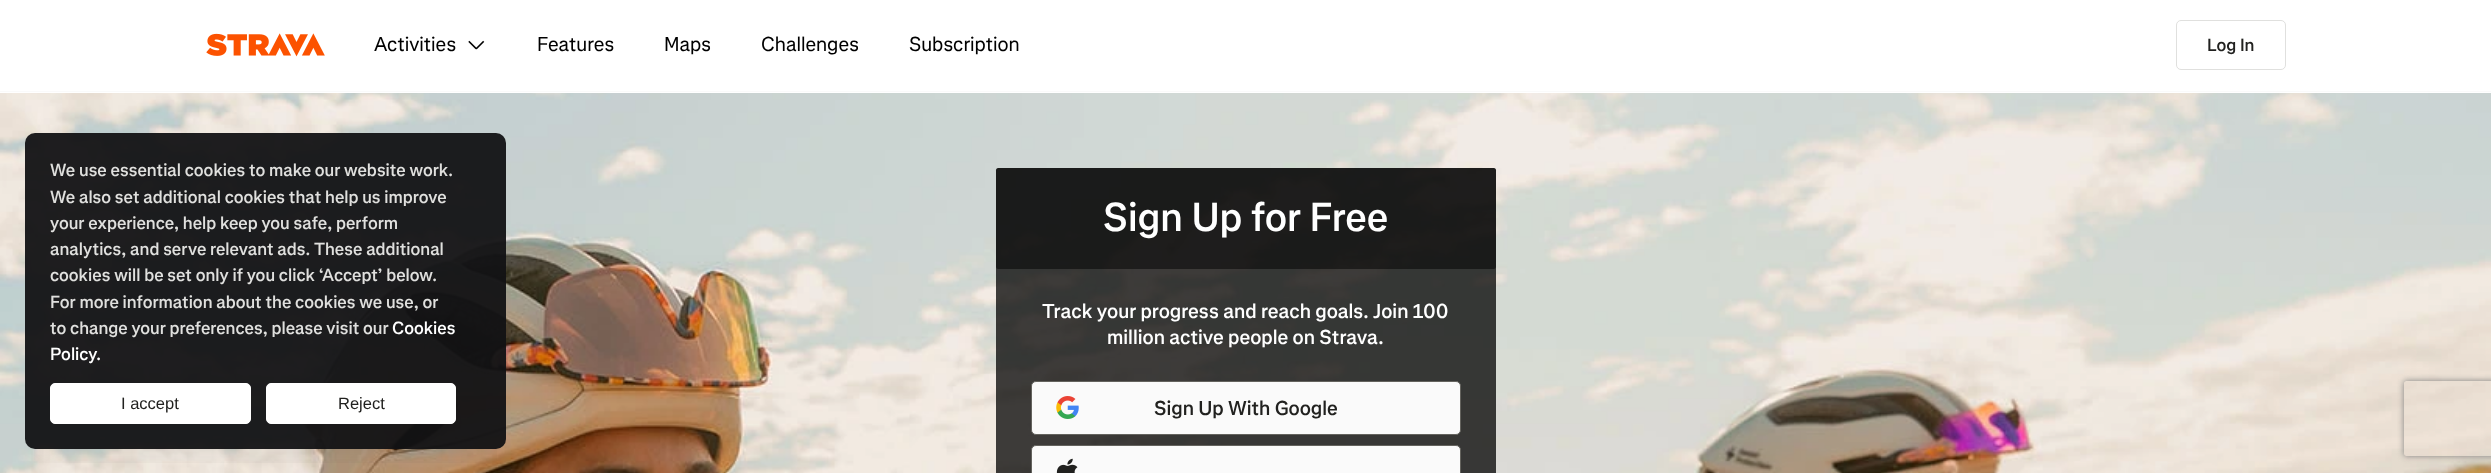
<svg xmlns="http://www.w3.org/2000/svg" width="2491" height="473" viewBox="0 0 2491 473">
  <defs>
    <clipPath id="clip1"><rect x="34" y="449" width="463" height="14"/></clipPath>
    <clipPath id="clip2"><path d="M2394 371H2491V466H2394ZM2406.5 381H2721.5C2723 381 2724 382 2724 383.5V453.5C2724 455 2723 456 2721.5 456H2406.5C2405 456 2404 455 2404 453.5V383.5C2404 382 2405 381 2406.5 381Z" clip-rule="evenodd"/></clipPath>
  </defs>
  <rect width="100%" height="100%" fill="rgb(255,255,255)"/>
  <image x="0" y="93" width="2491" height="380" href="pic3.png"/>
  <g clip-path="url(#clip1)">
    <rect x="40" y="163" width="451" height="286" fill="rgba(18,18,20,0.12)" filter="blur(15px)"/>
  </g>
  <rect x="25" y="133" width="481" height="316" rx="10" fill="rgba(18,18,20,0.95)"/>
  <g font-family="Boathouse" font-size="17.5" font-weight="500" fill="rgb(224,224,222)">
    <text>
      <tspan x="50" y="176">We use essential cookies to make our website work.</tspan>
      <tspan x="50" y="203">We also set additional cookies that help us improve</tspan>
      <tspan x="50" y="229">your experience, help keep you safe, perform</tspan>
      <tspan x="50" y="255">analytics, and serve relevant ads. These additional</tspan>
      <tspan x="50" y="281">cookies will be set only if you click ‘Accept’ below.</tspan>
      <tspan x="50" y="308">For more information about the cookies we use, or</tspan>
      <tspan x="50" y="334">to change your preferences, please visit our</tspan>
    </text>
  </g>
  <g font-family="Boathouse" font-size="17.5" font-weight="500" fill="rgb(255,255,255)">
    <text x="392" y="334">Cookies</text>
    <text x="50" y="360">Policy.</text>
  </g>
  <rect x="50.5" y="383.5" width="200" height="40" rx="4.5" fill="rgb(255,255,255)" stroke="rgb(255,255,255)"/>
  <text x="121" y="409" font-family="Liberation Sans" font-size="16.5" fill="rgb(33,33,31)">I accept</text>
  <rect x="266.5" y="383.5" width="189" height="40" rx="4.5" fill="rgb(255,255,255)" stroke="rgb(255,255,255)"/>
  <text x="338" y="409" font-family="Liberation Sans" font-size="16.5" fill="rgb(33,33,31)">Reject</text>
  <rect x="0" y="91" width="2491" height="1" fill="rgb(250,250,250)"/>
  <image x="206" y="33" width="119" height="24" href="pic1.png"/>
  <text x="374" y="51" font-family="Boathouse" font-size="20" fill="rgb(0,0,0)">Activities</text>
  <image x="468" y="40" width="17" height="10" href="pic2.png"/>
  <g font-family="Boathouse" font-size="20" fill="rgb(0,0,0)">
    <text x="537" y="51">Features</text>
    <text x="664" y="51">Maps</text>
    <text x="761" y="51">Challenges</text>
    <text x="909" y="51">Subscription</text>
  </g>
  <rect x="2176.5" y="20.5" width="109" height="49" rx="4.5" fill="none" stroke="rgb(224,224,222)"/>
  <text x="2207" y="51" font-family="Boathouse" font-size="17.5" font-weight="500" fill="rgb(33,33,31)">Log In</text>
  <rect x="996" y="168" width="500" height="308" rx="2.5" fill="rgba(0,0,0,0.75)"/>
  <rect x="996" y="168" width="500" height="101" rx="2.5" fill="rgba(0,0,0,0.5)"/>
  <text x="1103" y="231" font-family="Boathouse" font-size="40" font-weight="500" fill="rgb(255,255,255)">Sign Up for Free</text>
  <g font-family="Boathouse" font-size="20" font-weight="500" fill="rgb(255,255,255)">
    <text x="1042" y="318">Track your progress and reach goals. Join 100</text>
    <text x="1107" y="344">million active people on Strava.</text>
  </g>
  <rect x="1031.5" y="381.5" width="429" height="53" rx="4.5" fill="rgb(250,250,250)" stroke="rgb(100,99,94)"/>
  <image x="1056" y="396" width="23" height="23" href="pic4.png"/>
  <text x="1154" y="415" font-family="Boathouse" font-size="20" font-weight="500" fill="rgb(33,33,31)">Sign Up With Google</text>
  <rect x="1031.5" y="445.5" width="429" height="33" rx="4.5" fill="rgb(250,250,250)" stroke="rgb(100,99,94)"/>
  <image x="1056" y="458" width="22" height="15" href="pic5.png"/>
  <g clip-path="url(#clip2)">
    <rect x="2404" y="381" width="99" height="75" rx="2.5" fill="rgb(128,128,128)" filter="blur(3px)"/>
  </g>
</svg>
